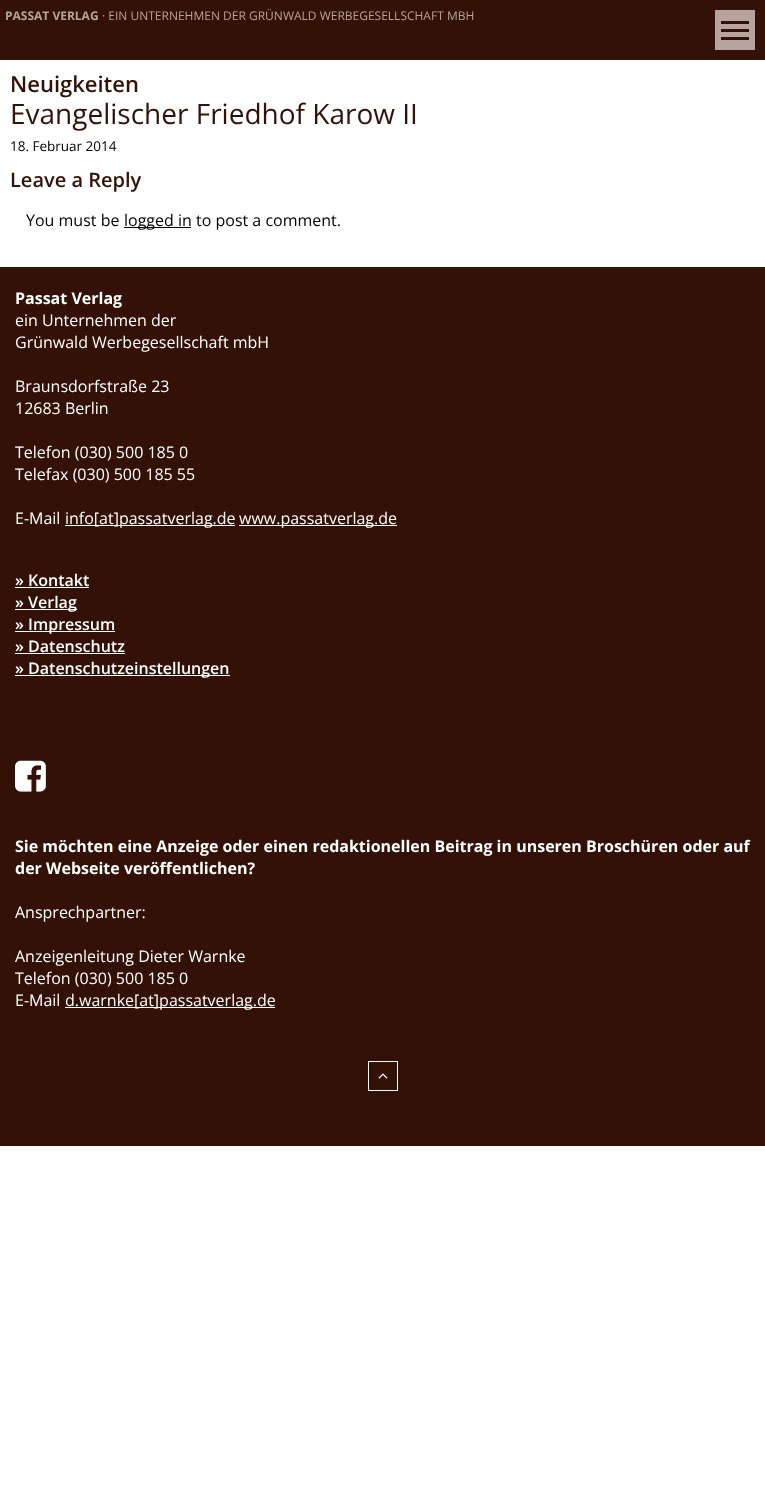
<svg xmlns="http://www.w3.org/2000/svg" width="765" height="1489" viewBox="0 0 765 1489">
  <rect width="100%" height="100%" fill="rgb(255,255,255)"/>
  <rect x="0" y="0" width="765" height="60" fill="rgb(52,17,6)"/>
  <text x="5" y="20" font-family="Open Sans" font-size="12" font-weight="bold" fill="rgb(182,163,157)">PASSAT VERLAG</text>
  <text x="102" y="20" font-family="Open Sans" font-size="12" fill="rgb(182,163,157)">· EIN UNTERNEHMEN DER GRÜNWALD WERBEGESELLSCHAFT MBH</text>
  <rect x="715" y="10" width="40" height="40" fill="rgb(182,163,157)"/>
  <rect x="721" y="21" width="28" height="3" fill="rgb(52,17,6)"/>
  <rect x="721" y="29" width="28" height="3" fill="rgb(52,17,6)"/>
  <rect x="721" y="37" width="28" height="3" fill="rgb(52,17,6)"/>
  <text x="10" y="92" font-family="Open Sans" font-size="22" font-weight="600" fill="rgb(52,17,6)">Neuigkeiten</text>
  <text x="10" y="124" font-family="Open Sans" font-size="28" fill="rgb(52,17,6)">Evangelischer Friedhof Karow II</text>
  <text x="10" y="151" font-family="Open Sans" font-size="13.5" fill="rgb(0,0,0)">18. Februar 2014</text>
  <text x="10" y="187" font-family="Open Sans" font-size="20" font-weight="600" fill="rgb(52,17,6)">Leave a Reply</text>
  <text x="26" y="226" font-family="Open Sans" font-size="16" fill="rgb(0,0,0)">You must be</text>
  <rect x="124" y="227" width="67" height="1" fill="rgb(0,0,0)"/>
  <text x="124" y="226" font-family="Open Sans" font-size="16" fill="rgb(0,0,0)">logged in to post a comment.</text>
  <rect x="0" y="267" width="765" height="879" fill="rgb(52,17,6)"/>
  <text x="15" y="304" font-family="Open Sans" font-size="16" font-weight="bold" fill="rgb(255,255,255)">Passat Verlag</text>
  <g font-family="Open Sans" font-size="16" fill="rgb(255,255,255)">
    <text>
      <tspan x="15" y="326">ein Unternehmen der</tspan>
      <tspan x="15" y="348">Grünwald Werbegesellschaft mbH</tspan>
    </text>
    <text>
      <tspan x="15" y="392">Braunsdorfstraße 23</tspan>
      <tspan x="15" y="414">12683 Berlin</tspan>
    </text>
    <text>
      <tspan x="15" y="458">Telefon (030) 500 185 0</tspan>
      <tspan x="15" y="480">Telefax (030) 500 185 55</tspan>
    </text>
    <text x="15" y="524">E-Mail</text>
  </g>
  <rect x="65" y="525" width="170" height="1" fill="rgb(255,255,255)"/>
  <text x="65" y="524" font-family="Open Sans" font-size="16" fill="rgb(255,255,255)">info[at]passatverlag.de</text>
  <rect x="239" y="525" width="158" height="1" fill="rgb(255,255,255)"/>
  <text x="239" y="524" font-family="Open Sans" font-size="16" fill="rgb(255,255,255)">www.passatverlag.de</text>
  <text x="15" y="586" font-family="Open Sans" font-size="16" font-weight="600" fill="rgb(255,255,255)">» Kontakt</text>
  <rect x="15" y="587" width="74" height="1" fill="rgb(255,255,255)"/>
  <rect x="15" y="609" width="62" height="1" fill="rgb(255,255,255)"/>
  <text x="15" y="608" font-family="Open Sans" font-size="16" font-weight="600" fill="rgb(255,255,255)">» Verlag</text>
  <rect x="15" y="631" width="100" height="1" fill="rgb(255,255,255)"/>
  <g font-family="Open Sans" font-size="16" font-weight="600" fill="rgb(255,255,255)">
    <text>
      <tspan x="15" y="630">» Impressum</tspan>
      <tspan x="15" y="652">» Datenschutz</tspan>
    </text>
  </g>
  <rect x="15" y="653" width="110" height="1" fill="rgb(255,255,255)"/>
  <rect x="15" y="675" width="215" height="1" fill="rgb(255,255,255)"/>
  <text x="15" y="674" font-family="Open Sans" font-size="16" font-weight="600" fill="rgb(255,255,255)">» Datenschutzeinstellungen</text>
  <image x="15" y="760" width="31" height="32" href="pic1.png"/>
  <g font-family="Open Sans" font-size="16" font-weight="bold" fill="rgb(255,255,255)">
    <text>
      <tspan x="15" y="852">Sie möchten eine Anzeige oder einen redaktionellen Beitrag in unseren Broschüren oder auf</tspan>
      <tspan x="15" y="874">der Webseite veröffentlichen?</tspan>
    </text>
  </g>
  <g font-family="Open Sans" font-size="16" fill="rgb(255,255,255)">
    <text x="15" y="918">Ansprechpartner:</text>
    <text>
      <tspan x="15" y="962">Anzeigenleitung Dieter Warnke</tspan>
      <tspan x="15" y="984">Telefon (030) 500 185 0</tspan>
      <tspan x="15" y="1006">E-Mail</tspan>
    </text>
  </g>
  <rect x="65" y="1007" width="210" height="1" fill="rgb(255,255,255)"/>
  <text x="65" y="1006" font-family="Open Sans" font-size="16" fill="rgb(255,255,255)">d.warnke[at]passatverlag.de</text>
  <rect x="368.5" y="1061.5" width="29" height="29" fill="none" stroke="rgb(255,255,255)"/>
  <image x="378" y="1073" width="10" height="6" href="pic2.png"/>
</svg>
